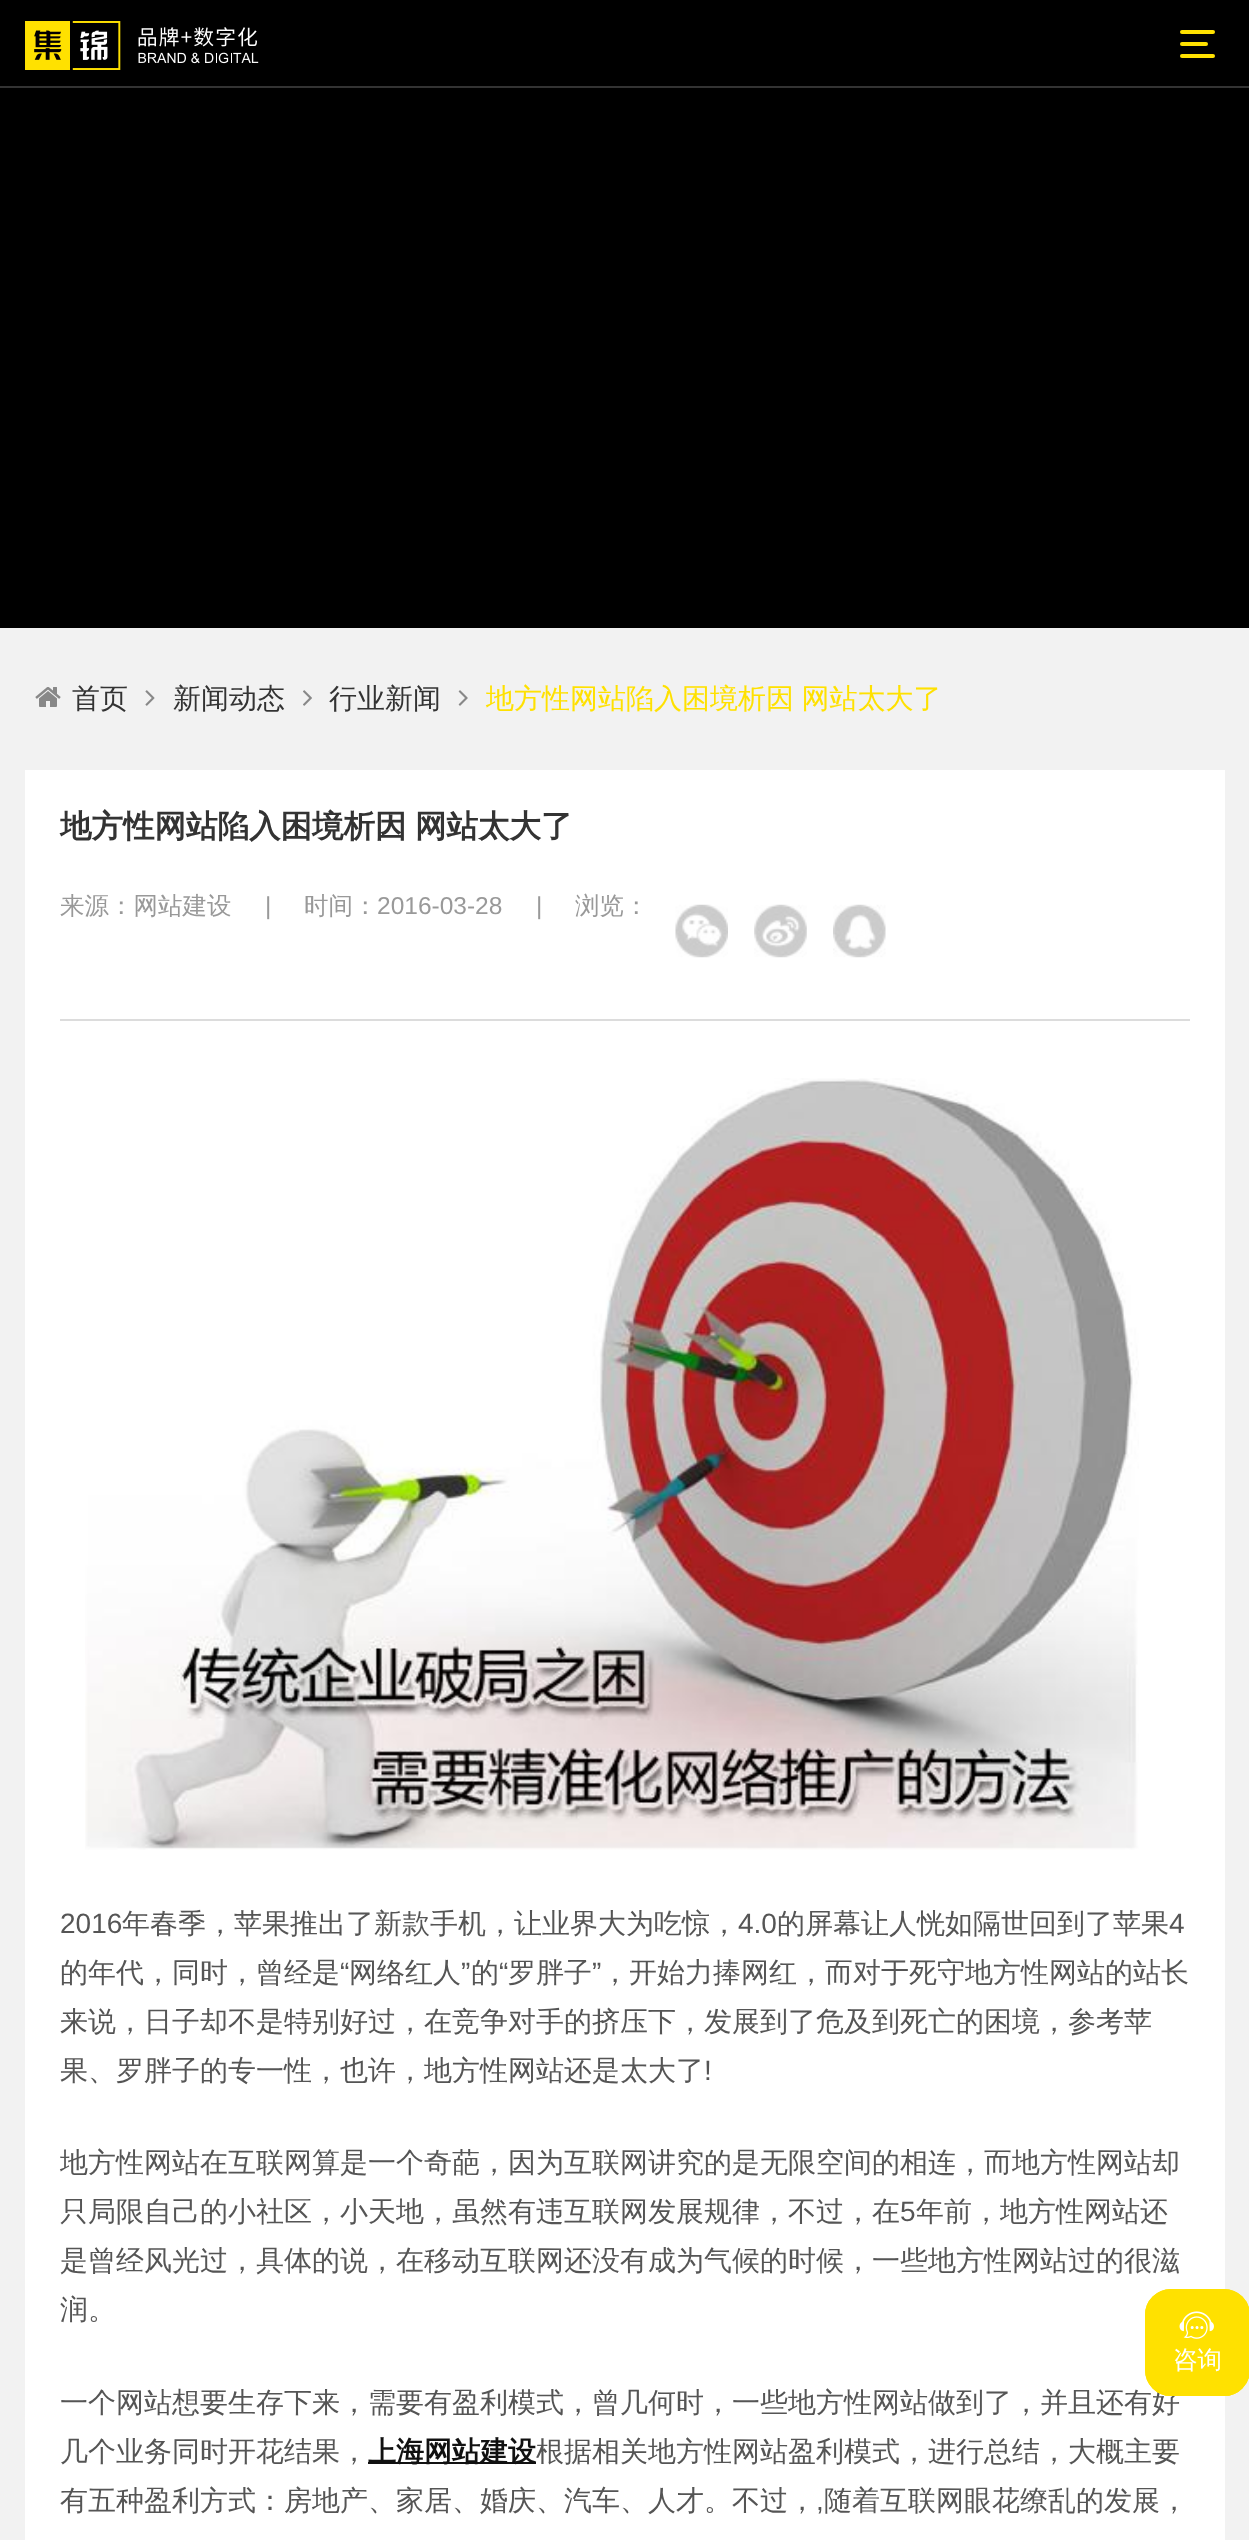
<svg xmlns="http://www.w3.org/2000/svg" width="1249" height="2540" viewBox="0 0 1249 2540">
  <rect width="100%" height="100%" fill="rgb(0,0,0)"/>
  <rect x="0" y="86" width="1249" height="2" fill="rgb(51,51,51)"/>
  <image x="25" y="21" width="234" height="49" href="pic1.png"/>
  <rect x="1180" y="30" width="35" height="4" rx="2" fill="rgb(255,225,0)"/>
  <rect x="1180" y="42" width="28" height="4" rx="2" fill="rgb(255,225,0)"/>
  <rect x="1180" y="54" width="35" height="4" rx="2" fill="rgb(255,225,0)"/>
  <rect x="0" y="628" width="1249" height="1912" fill="rgb(242,242,242)"/>
  <image x="35" y="687" width="26" height="20" href="pic2.png"/>
  <text x="72" y="708" font-family="WenQuanYi Zen Hei" font-size="28" font-weight="500" fill="rgb(51,51,51)">首页</text>
  <image x="145" y="690" width="10" height="16" href="pic3.png"/>
  <text x="173" y="708" font-family="WenQuanYi Zen Hei" font-size="28" font-weight="500" fill="rgb(51,51,51)">新闻动态</text>
  <image x="303" y="690" width="9" height="16" href="pic4.png"/>
  <text x="329" y="708" font-family="WenQuanYi Zen Hei" font-size="28" font-weight="500" fill="rgb(51,51,51)">行业新闻</text>
  <image x="458" y="690" width="10" height="16" href="pic5.png"/>
  <text x="486" y="708" word-spacing="-1" font-family="WenQuanYi Zen Hei" font-size="28" font-weight="500" fill="rgb(255,225,0)">地方性网站陷入困境析因 网站太大了</text>
  <rect x="25" y="770" width="1200" height="1770" fill="rgb(255,255,255)"/>
  <rect x="60" y="1019" width="1130" height="2" fill="rgb(220,220,220)"/>
  <text x="60" y="837" word-spacing="-1" font-family="WenQuanYi Zen Hei" font-size="31.5" font-weight="bold" fill="rgb(51,51,51)">地方性网站陷入困境析因 网站太大了</text>
  <text x="60" y="914" font-family="WenQuanYi Zen Hei" font-size="24.5" font-weight="500" fill="rgb(153,153,153)">来源：网站建设</text>
  <text x="265" y="914" font-family="Liberation Sans" font-size="24.5" fill="rgb(153,153,153)">|</text>
  <text x="304" y="914" font-family="WenQuanYi Zen Hei" font-size="24.5" font-weight="500" fill="rgb(153,153,153)">时间：</text>
  <g font-family="Liberation Sans" font-size="24.5" fill="rgb(153,153,153)">
    <text x="377" y="914">2016-03-28</text>
    <text x="536" y="914">|</text>
  </g>
  <text x="575" y="914" font-family="WenQuanYi Zen Hei" font-size="24.5" font-weight="500" fill="rgb(153,153,153)">浏览：</text>
  <image x="675" y="904" width="53" height="54" href="pic6.png"/>
  <image x="754" y="904" width="53" height="54" href="pic7.png"/>
  <image x="833" y="904" width="53" height="54" href="pic8.png"/>
  <image x="85" y="1078" width="1054" height="772" href="pic9.png"/>
  <text x="60" y="1933" font-family="Liberation Sans" font-size="28" fill="rgb(85,85,85)">2016</text>
  <text x="122" y="1933" font-family="WenQuanYi Zen Hei" font-size="28" font-weight="500" fill="rgb(85,85,85)">年春季，苹果推出了新款手机，让业界大为吃惊，</text>
  <text x="738" y="1933" font-family="Liberation Sans" font-size="28" fill="rgb(85,85,85)">4.0</text>
  <text x="777" y="1933" font-family="WenQuanYi Zen Hei" font-size="28" font-weight="500" fill="rgb(85,85,85)">的屏幕让人恍如隔世回到了苹果</text>
  <text x="1169" y="1933" font-family="Liberation Sans" font-size="28" fill="rgb(85,85,85)">4</text>
  <text x="60" y="1982" font-family="WenQuanYi Zen Hei" font-size="28" font-weight="500" fill="rgb(85,85,85)">的年代，同时，曾经是</text>
  <text x="340" y="1982" font-family="Liberation Sans" font-size="28" fill="rgb(85,85,85)">“</text>
  <text x="349" y="1982" font-family="WenQuanYi Zen Hei" font-size="28" font-weight="500" fill="rgb(85,85,85)">网络红人</text>
  <text x="461" y="1982" font-family="Liberation Sans" font-size="28" fill="rgb(85,85,85)">”</text>
  <text x="471" y="1982" font-family="WenQuanYi Zen Hei" font-size="28" font-weight="500" fill="rgb(85,85,85)">的</text>
  <text x="499" y="1982" font-family="Liberation Sans" font-size="28" fill="rgb(85,85,85)">“</text>
  <text x="508" y="1982" font-family="WenQuanYi Zen Hei" font-size="28" font-weight="500" fill="rgb(85,85,85)">罗胖子</text>
  <text x="592" y="1982" font-family="Liberation Sans" font-size="28" fill="rgb(85,85,85)">”</text>
  <g font-family="WenQuanYi Zen Hei" font-size="28" font-weight="500" fill="rgb(85,85,85)">
    <text x="601" y="1982">，开始力捧网红，而对于死守地方性网站的站长</text>
    <text>
      <tspan x="60" y="2031">来说，日子却不是特别好过，在竞争对手的挤压下，发展到了危及到死亡的困境，参考苹</tspan>
      <tspan x="60" y="2080">果、罗胖子的专一性，也许，地方性网站还是太大了</tspan>
    </text>
  </g>
  <text x="704" y="2080" font-family="Liberation Sans" font-size="28" fill="rgb(85,85,85)">!</text>
  <g font-family="WenQuanYi Zen Hei" font-size="28" font-weight="500" fill="rgb(85,85,85)">
    <text>
      <tspan x="60" y="2172">地方性网站在互联网算是一个奇葩，因为互联网讲究的是无限空间的相连，而地方性网站却</tspan>
      <tspan x="60" y="2221">只局限自己的小社区，小天地，虽然有违互联网发展规律，不过，在</tspan>
    </text>
  </g>
  <text x="900" y="2221" font-family="Liberation Sans" font-size="28" fill="rgb(85,85,85)">5</text>
  <g font-family="WenQuanYi Zen Hei" font-size="28" font-weight="500" fill="rgb(85,85,85)">
    <text x="916" y="2221">年前，地方性网站还</text>
    <text>
      <tspan x="60" y="2270">是曾经风光过，具体的说，在移动互联网还没有成为气候的时候，一些地方性网站过的很滋</tspan>
      <tspan x="60" y="2319">润。</tspan>
    </text>
    <text>
      <tspan x="60" y="2412">一个网站想要生存下来，需要有盈利模式，曾几何时，一些地方性网站做到了，并且还有好</tspan>
      <tspan x="60" y="2461">几个业务同时开花结果，</tspan>
    </text>
  </g>
  <rect x="368" y="2462" width="168" height="2" fill="rgb(17,17,17)"/>
  <text x="368" y="2461" font-family="WenQuanYi Zen Hei" font-size="28" font-weight="bold" fill="rgb(17,17,17)">上海网站建设</text>
  <g font-family="WenQuanYi Zen Hei" font-size="28" font-weight="500" fill="rgb(85,85,85)">
    <text x="536" y="2461">根据相关地方性网站盈利模式，进行总结，大概主要</text>
    <text x="60" y="2510">有五种盈利方式：房地产、家居、婚庆、汽车、人才。不过，</text>
  </g>
  <text x="816" y="2510" font-family="Liberation Sans" font-size="28" fill="rgb(85,85,85)">,</text>
  <text x="824" y="2510" font-family="WenQuanYi Zen Hei" font-size="28" font-weight="500" fill="rgb(85,85,85)">随着互联网眼花缭乱的发展，</text>
  <rect x="1146" y="2290" width="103" height="105" rx="25" fill="none" stroke="rgb(255,225,0)" stroke-width="2"/>
  <rect x="1146" y="2290" width="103" height="105" rx="25" fill="rgb(255,225,0)" stroke="rgb(255,225,0)" stroke-width="2"/>
  <image x="1179" y="2311" width="35" height="28" href="pic10.png"/>
  <text x="1173" y="2368" font-family="WenQuanYi Zen Hei" font-size="24.5" font-weight="500" fill="rgb(255,255,255)">咨询</text>
</svg>
